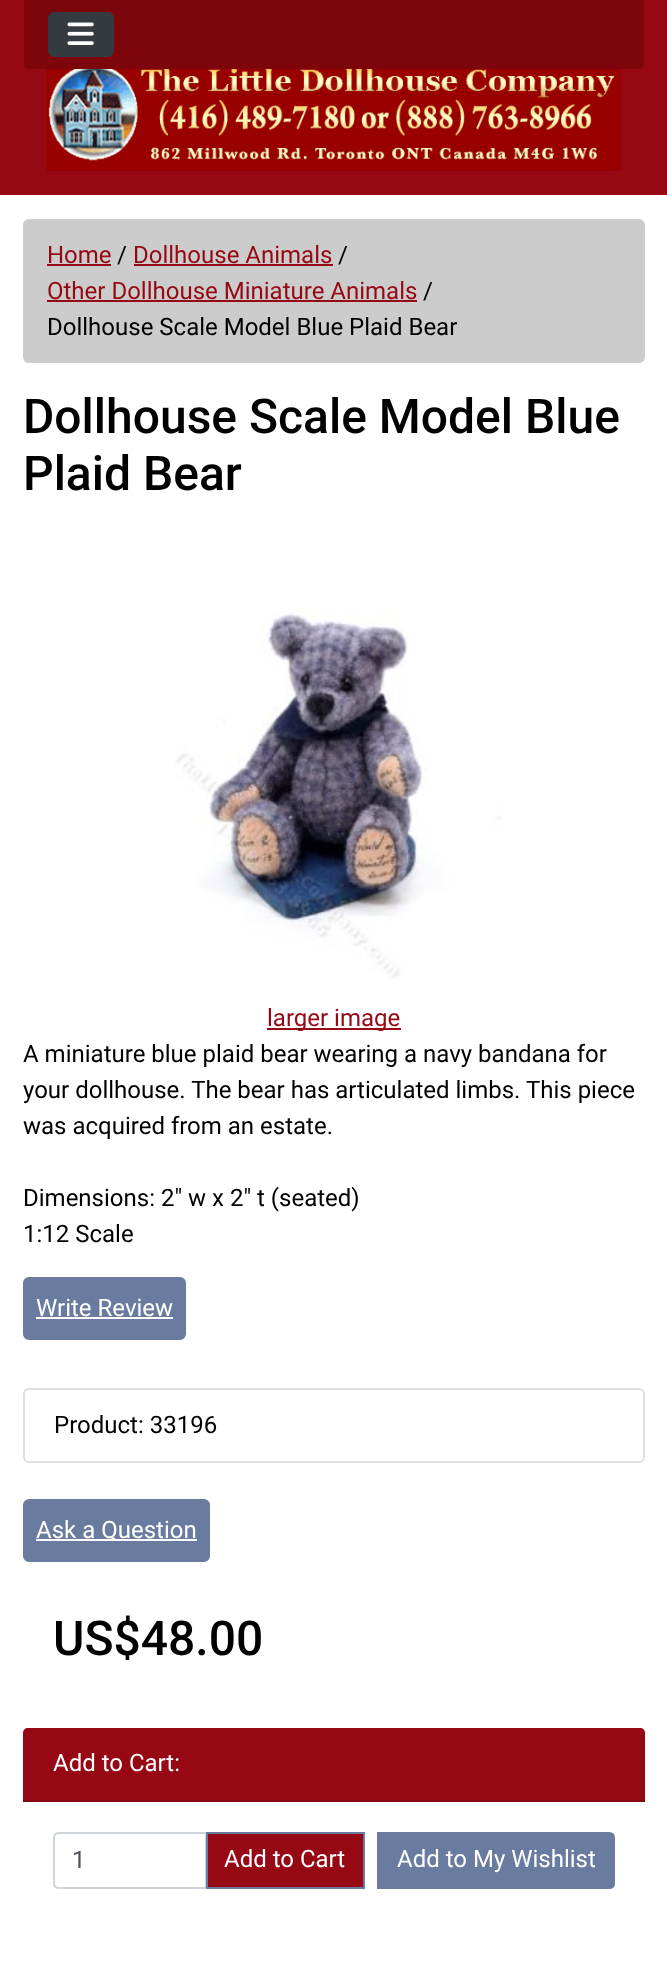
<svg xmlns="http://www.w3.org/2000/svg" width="667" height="1975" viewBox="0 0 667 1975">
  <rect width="100%" height="100%" fill="rgb(255,255,255)"/>
  <rect x="0" y="0" width="667" height="195" fill="rgb(149,8,20)"/>
  <path d="M24 0H644V63C644 66.5 641.5 69 638 69H30C26.5 69 24 66.5 24 63Z" fill="rgb(124,6,11)"/>
  <rect x="49" y="13" width="64" height="43" rx="5" fill="rgb(52,58,64)" stroke="rgb(52,58,64)" stroke-width="2"/>
  <image x="67" y="22" width="27" height="23" href="pic1.png"/>
  <image x="46" y="69" width="575" height="102" href="pic2.png"/>
  <rect x="23" y="219" width="622" height="144" rx="6" fill="rgb(204,204,204)"/>
  <text x="47" y="263" font-family="Roboto" font-size="24" fill="rgb(149,8,20)">Home</text>
  <rect x="47" y="264" width="64" height="2" fill="rgb(149,8,20)"/>
  <text x="117" y="263" font-family="Roboto" font-size="24" fill="rgb(0,0,0)">/</text>
  <text x="133" y="263" font-family="Roboto" font-size="24" fill="rgb(149,8,20)">Dollhouse Animals</text>
  <rect x="134" y="264" width="199" height="2" fill="rgb(149,8,20)"/>
  <text x="338" y="263" font-family="Roboto" font-size="24" fill="rgb(0,0,0)">/</text>
  <text x="47" y="299" font-family="Roboto" font-size="24" fill="rgb(149,8,20)">Other Dollhouse Miniature Animals</text>
  <rect x="47" y="300" width="370" height="2" fill="rgb(149,8,20)"/>
  <g font-family="Roboto" font-size="24" fill="rgb(0,0,0)">
    <text x="423" y="299">/</text>
    <text x="47" y="335">Dollhouse Scale Model Blue Plaid Bear</text>
  </g>
  <g font-family="Roboto" font-size="48" font-weight="500" fill="rgb(0,0,0)">
    <text>
      <tspan x="23" y="433">Dollhouse Scale Model Blue</tspan>
      <tspan x="23" y="490">Plaid Bear</tspan>
    </text>
  </g>
  <image x="175" y="611" width="328" height="368" href="pic3.png"/>
  <rect x="267" y="1028" width="134" height="2" fill="rgb(149,8,20)"/>
  <text x="267" y="1026" font-family="Roboto" font-size="24" fill="rgb(149,8,20)">larger image</text>
  <g font-family="Roboto" font-size="24" fill="rgb(0,0,0)">
    <text>
      <tspan x="23" y="1062">A miniature blue plaid bear wearing a navy bandana for</tspan>
      <tspan x="23" y="1098">your dollhouse. The bear has articulated limbs. This piece</tspan>
      <tspan x="23" y="1134">was acquired from an estate.</tspan>
    </text>
    <text>
      <tspan x="23" y="1206">Dimensions: 2" w x 2" t (seated)</tspan>
      <tspan x="23" y="1242">1:12 Scale</tspan>
    </text>
  </g>
  <rect x="24" y="1278" width="161" height="61" rx="5" fill="rgb(105,123,158)" stroke="rgb(105,123,158)" stroke-width="2"/>
  <text x="36" y="1316" font-family="Roboto" font-size="24" fill="rgb(255,255,255)">Write Review</text>
  <rect x="36" y="1317" width="137" height="2" fill="rgb(255,255,255)"/>
  <rect x="24" y="1389" width="620" height="73" rx="5" fill="none" stroke="rgb(223,223,223)" stroke-width="2"/>
  <text x="54" y="1433" font-family="Roboto" font-size="24" fill="rgb(0,0,0)">Product: 33196</text>
  <rect x="24" y="1500" width="185" height="61" rx="5" fill="rgb(105,123,158)" stroke="rgb(105,123,158)" stroke-width="2"/>
  <rect x="36" y="1539" width="161" height="2" fill="rgb(255,255,255)"/>
  <text x="36" y="1538" font-family="Roboto" font-size="24" fill="rgb(255,255,255)">Ask a Question</text>
  <text x="53" y="1655" font-family="Roboto" font-size="48" font-weight="500" fill="rgb(0,0,0)">US$48.00</text>
  <path d="M28 1728H640C643 1728 645 1730 645 1733V1802H23V1733C23 1730 25 1728 28 1728Z" fill="rgb(149,8,20)"/>
  <rect x="23" y="1800" width="622" height="2" fill="rgb(130,7,18)"/>
  <text x="53" y="1771" font-family="Roboto" font-size="24" fill="rgb(255,255,255)">Add to Cart:</text>
  <path d="M59 1833H206V1888H59C56 1888 54 1886 54 1883V1838C54 1835 56 1833 59 1833Z" fill="none" stroke="rgb(206,212,218)" stroke-width="2"/>
  <text x="72" y="1868" font-family="Roboto" font-size="24" fill="rgb(73,80,87)">1</text>
  <rect x="207" y="1833" width="157" height="55" fill="rgb(149,8,20)" stroke="rgb(105,123,158)" stroke-width="2"/>
  <text x="224" y="1867" font-family="Roboto" font-size="24" fill="rgb(255,255,255)">Add to Cart</text>
  <path d="M378 1833H609C612 1833 614 1835 614 1838V1883C614 1886 612 1888 609 1888H378Z" fill="rgb(105,123,158)" stroke="rgb(105,123,158)" stroke-width="2"/>
  <text x="397" y="1867" font-family="Roboto" font-size="24" fill="rgb(255,255,255)">Add to My Wishlist</text>
</svg>
